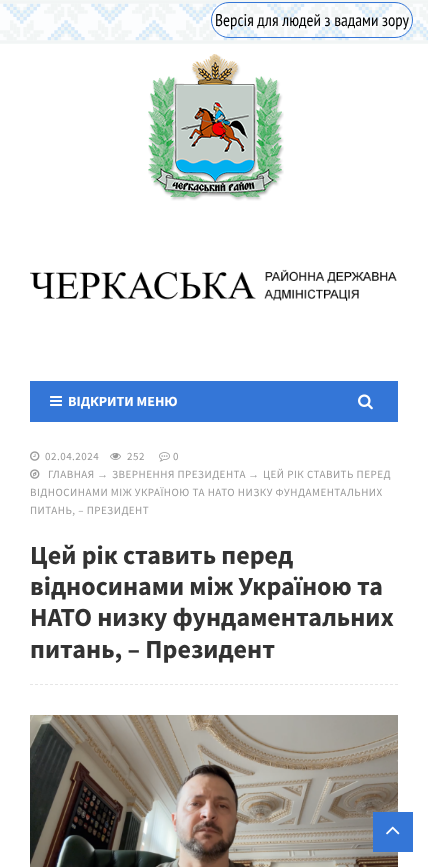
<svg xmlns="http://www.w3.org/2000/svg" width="428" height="867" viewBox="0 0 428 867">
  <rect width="100%" height="100%" fill="rgb(252,253,254)"/>
  <image x="0" y="0" width="428" height="44" href="pic1.png"/>
  <rect x="211.5" y="2.5" width="201" height="35" rx="17.5" fill="none" stroke="rgb(52,118,215)"/>
  <text x="215" y="26" font-family="PT Sans Narrow" font-size="17" fill="rgb(0,0,0)">Версія для людей з вадами зору</text>
  <rect x="0" y="44" width="428" height="823" fill="rgb(255,255,255)"/>
  <image x="148" y="54" width="136" height="147" href="pic2.png"/>
  <image x="30" y="269" width="367" height="32" href="pic3.png"/>
  <rect x="30" y="381" width="368" height="41" fill="rgb(52,118,215)"/>
  <image x="50" y="396" width="12" height="10" href="pic4.png"/>
  <text x="68" y="406" font-family="Source Sans Pro" font-size="14" font-weight="bold" fill="rgb(255,255,255)">ВІДКРИТИ МЕНЮ</text>
  <image x="358" y="394" width="15" height="16" href="pic5.png"/>
  <image x="30" y="451" width="10" height="10" href="pic6.png"/>
  <text x="45" y="460" font-family="Source Sans Pro" font-size="11" letter-spacing="0.5" fill="rgb(153,153,153)">02.04.2024</text>
  <image x="110" y="453" width="11" height="7" href="pic7.png"/>
  <text x="127" y="460" font-family="Source Sans Pro" font-size="11" letter-spacing="0.5" fill="rgb(153,153,153)">252</text>
  <image x="159" y="452" width="11" height="10" href="pic8.png"/>
  <text x="173" y="460" font-family="Source Sans Pro" font-size="11" letter-spacing="0.5" fill="rgb(153,153,153)">0</text>
  <image x="30" y="469" width="10" height="10" href="pic9.png"/>
  <text x="48" y="478" font-family="Source Sans Pro" font-size="11" letter-spacing="0.5" fill="rgb(153,153,153)">ГЛАВНАЯ</text>
  <text x="97" y="478" font-family="Liberation Sans" font-size="11" letter-spacing="0.5" fill="rgb(153,153,153)">→</text>
  <text x="112" y="478" font-family="Source Sans Pro" font-size="11" letter-spacing="0.5" fill="rgb(153,153,153)">ЗВЕРНЕННЯ ПРЕЗИДЕНТА</text>
  <text x="248" y="478" font-family="Liberation Sans" font-size="11" letter-spacing="0.5" fill="rgb(153,153,153)">→</text>
  <g font-family="Source Sans Pro" font-size="11" letter-spacing="0.5" fill="rgb(153,153,153)">
    <text x="263" y="478">ЦЕЙ РІК СТАВИТЬ ПЕРЕД</text>
    <text>
      <tspan x="30" y="496">ВІДНОСИНАМИ МІЖ УКРАЇНОЮ ТА НАТО НИЗКУ ФУНДАМЕНТАЛЬНИХ</tspan>
      <tspan x="30" y="514">ПИТАНЬ, – ПРЕЗИДЕНТ</tspan>
    </text>
  </g>
  <g font-family="Source Sans Pro" font-size="26" font-weight="bold" fill="rgb(51,51,51)">
    <text>
      <tspan x="30" y="564">Цей рік ставить перед</tspan>
      <tspan x="30" y="595">відносинами між Україною та</tspan>
      <tspan x="30" y="626">НАТО низку фундаментальних</tspan>
      <tspan x="30" y="658">питань, – Президент</tspan>
    </text>
  </g>
  <path d="M30 684.5H398" fill="none" stroke="rgb(230,230,230)" stroke-dasharray="3 2"/>
  <image x="30" y="715" width="368" height="152" href="pic10.png"/>
  <rect x="373" y="812" width="40" height="40" fill="rgb(52,118,215)"/>
  <image x="386" y="826" width="14" height="9" href="pic11.png"/>
</svg>
